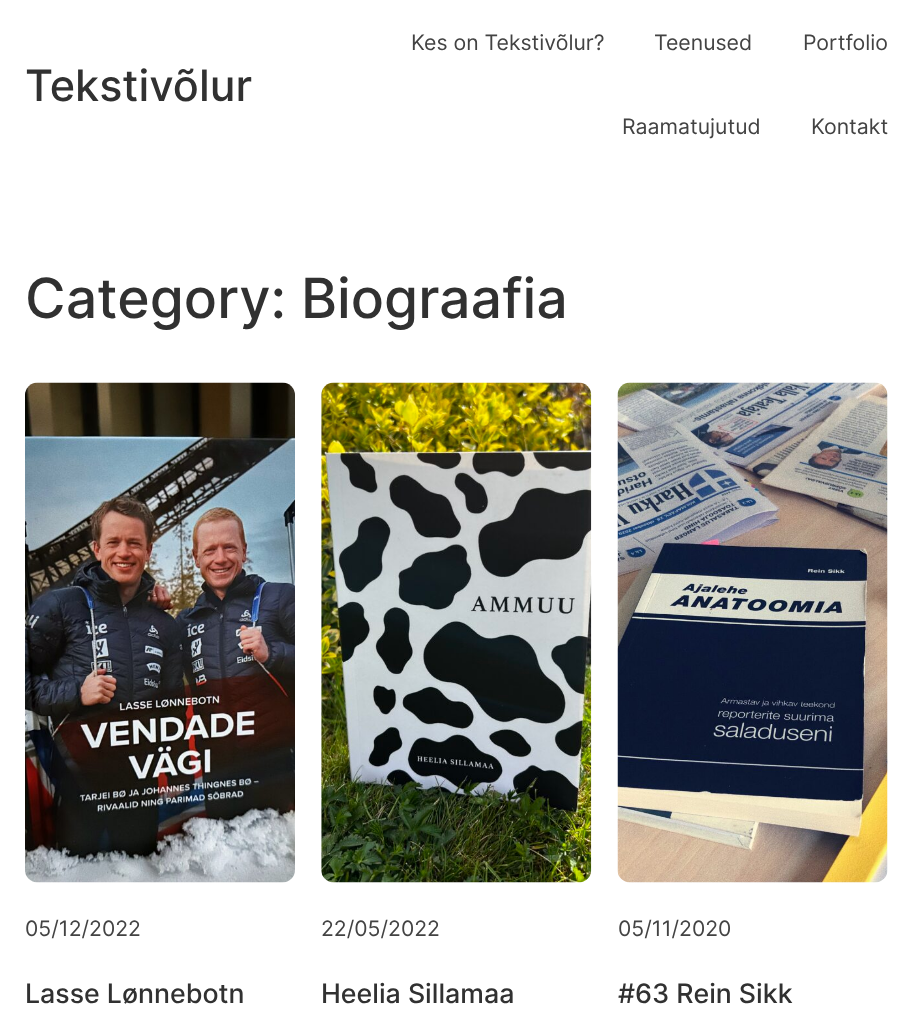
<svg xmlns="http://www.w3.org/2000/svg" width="912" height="1021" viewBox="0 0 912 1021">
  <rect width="100%" height="100%" fill="rgb(255,255,255)"/>
  <text x="25" y="101" font-family="Inter" font-size="43.25" font-weight="500" fill="rgb(49,49,49)">Tekstivõlur</text>
  <g font-family="Inter" font-size="21.25" fill="rgb(67,67,67)">
    <text x="411" y="50">Kes on Tekstivõlur?</text>
    <text x="654" y="50">Teenused</text>
    <text x="803" y="50">Portfolio</text>
    <text x="622" y="134">Raamatujutud</text>
    <text x="811" y="134">Kontakt</text>
  </g>
  <text x="25" y="318" font-family="Inter" font-size="55.25" font-weight="500" fill="rgb(49,49,49)">Category: Biograafia</text>
  <image x="25" y="382" width="270" height="501" href="pic1.png"/>
  <text x="25" y="936" font-family="Inter" font-size="21.25" fill="rgb(67,67,67)">05/12/2022</text>
  <text x="25" y="1003" font-family="Inter" font-size="26.75" font-weight="500" fill="rgb(49,49,49)">Lasse Lønnebotn</text>
  <image x="321" y="382" width="271" height="501" href="pic2.png"/>
  <text x="321" y="936" font-family="Inter" font-size="21.25" fill="rgb(67,67,67)">22/05/2022</text>
  <text x="321" y="1003" font-family="Inter" font-size="26.75" font-weight="500" fill="rgb(49,49,49)">Heelia Sillamaa</text>
  <image x="617" y="382" width="271" height="501" href="pic3.png"/>
  <text x="618" y="936" font-family="Inter" font-size="21.25" fill="rgb(67,67,67)">05/11/2020</text>
  <text x="618" y="1003" font-family="Inter" font-size="26.75" font-weight="500" fill="rgb(49,49,49)">#63 Rein Sikk</text>
</svg>
